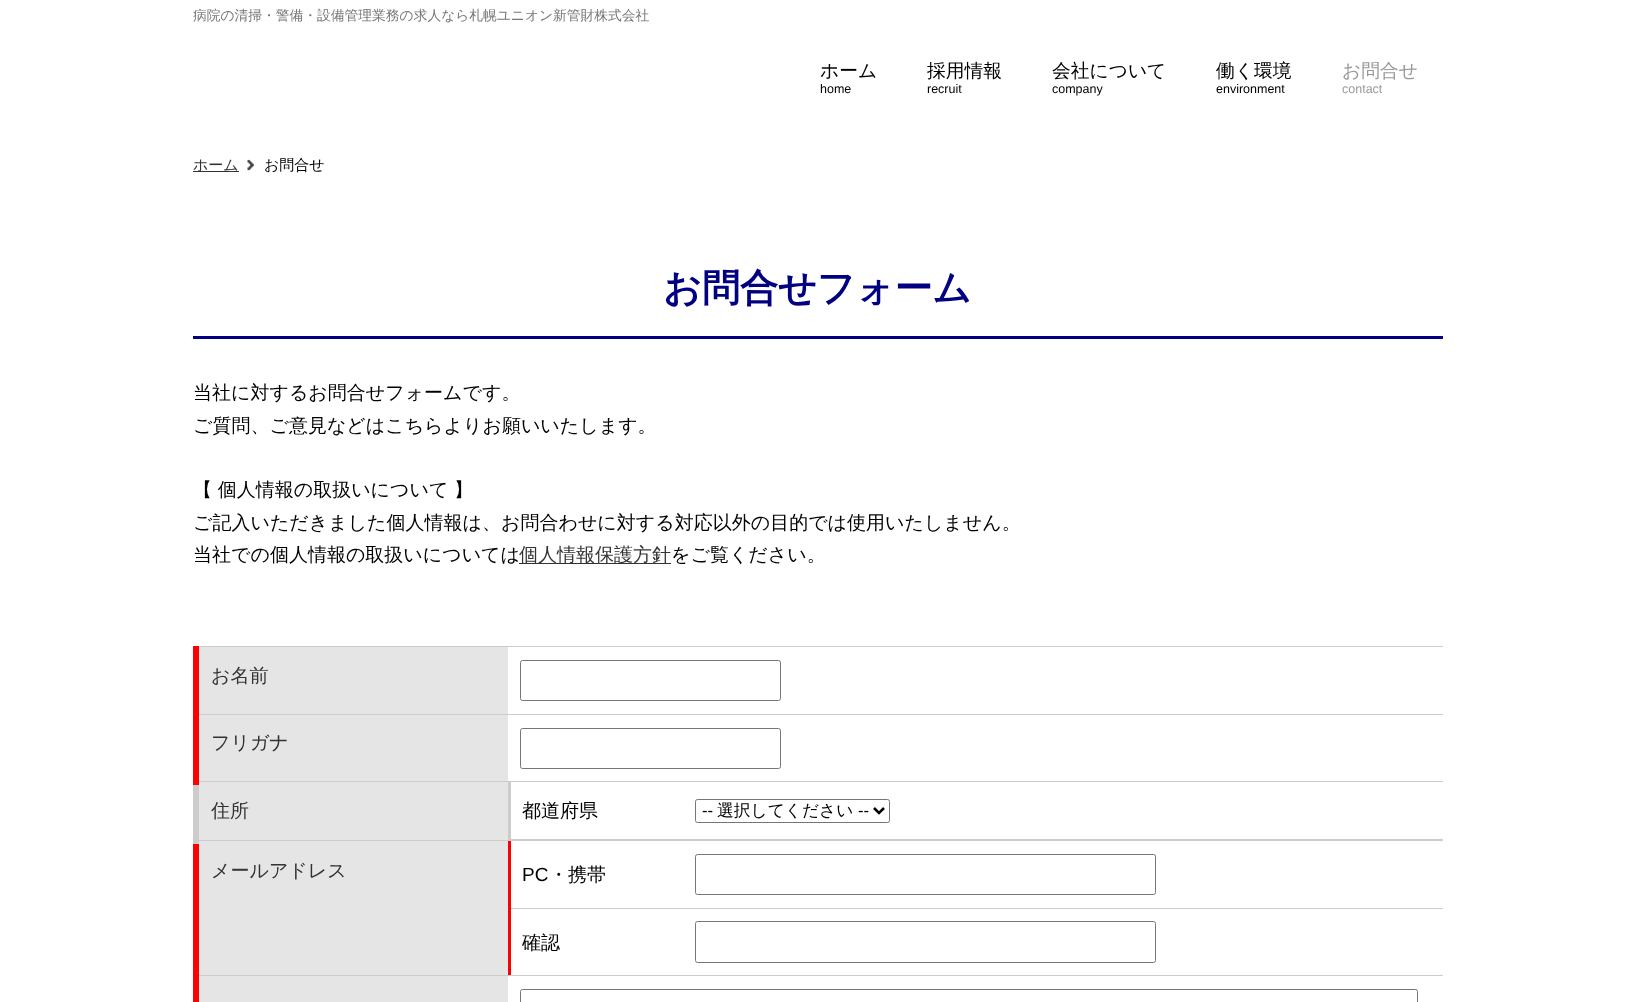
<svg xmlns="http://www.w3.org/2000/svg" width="1635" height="1002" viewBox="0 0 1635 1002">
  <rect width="100%" height="100%" fill="rgb(255,255,255)"/>
  <text x="193" y="20" font-family="WenQuanYi Zen Hei" font-size="13.75" font-weight="500" fill="rgb(119,119,119)">病院の清掃・警備・設備管理業務の求人なら札幌ユニオン新管財株式会社</text>
  <text x="820" y="77" font-family="WenQuanYi Zen Hei" font-size="18.75" font-weight="500" fill="rgb(0,0,0)">ホーム</text>
  <text x="820" y="93" font-family="Liberation Sans" font-size="12.5" fill="rgb(0,0,0)">home</text>
  <text x="927" y="77" font-family="WenQuanYi Zen Hei" font-size="18.75" font-weight="500" fill="rgb(0,0,0)">採用情報</text>
  <text x="927" y="93" font-family="Liberation Sans" font-size="12.5" fill="rgb(0,0,0)">recruit</text>
  <text x="1052" y="77" font-family="WenQuanYi Zen Hei" font-size="18.75" font-weight="500" fill="rgb(0,0,0)">会社について</text>
  <text x="1052" y="93" font-family="Liberation Sans" font-size="12.5" fill="rgb(0,0,0)">company</text>
  <text x="1216" y="77" font-family="WenQuanYi Zen Hei" font-size="18.75" font-weight="500" fill="rgb(0,0,0)">働く環境</text>
  <text x="1216" y="93" font-family="Liberation Sans" font-size="12.5" fill="rgb(0,0,0)">environment</text>
  <text x="1342" y="77" font-family="WenQuanYi Zen Hei" font-size="18.75" font-weight="500" fill="rgb(153,153,153)">お問合せ</text>
  <text x="1342" y="93" font-family="Liberation Sans" font-size="12.5" fill="rgb(153,153,153)">contact</text>
  <rect x="193" y="171" width="46" height="1" fill="rgb(51,51,51)"/>
  <text x="193" y="170" font-family="WenQuanYi Zen Hei" font-size="15" font-weight="500" fill="rgb(51,51,51)">ホーム</text>
  <image x="247" y="159" width="7" height="12" href="pic1.png"/>
  <text x="264" y="170" font-family="WenQuanYi Zen Hei" font-size="15" font-weight="500" fill="rgb(0,0,0)">お問合せ</text>
  <text x="663" y="301" font-family="WenQuanYi Zen Hei" font-size="38" font-weight="bold" fill="rgb(0,0,128)">お問合せフォーム</text>
  <rect x="193" y="336" width="1250" height="3" fill="rgb(0,0,128)"/>
  <g font-family="WenQuanYi Zen Hei" font-size="19" font-weight="500" fill="rgb(0,0,0)">
    <text>
      <tspan x="193" y="399">当社に対するお問合せフォームです。</tspan>
      <tspan x="193" y="432">ご質問、ご意見などはこちらよりお願いいたします。</tspan>
    </text>
    <text>
      <tspan x="193" y="496">【 個人情報の取扱いについて 】</tspan>
      <tspan x="193" y="529">ご記入いただきました個人情報は、お問合わせに対する対応以外の目的では使用いたしません。</tspan>
      <tspan x="193" y="561">当社での個人情報の取扱いについては</tspan>
    </text>
  </g>
  <rect x="519" y="563" width="152" height="1" fill="rgb(51,51,51)"/>
  <text x="519" y="561" font-family="WenQuanYi Zen Hei" font-size="19" font-weight="500" fill="rgb(51,51,51)">個人情報保護方針</text>
  <text x="671" y="561" font-family="WenQuanYi Zen Hei" font-size="19" font-weight="500" fill="rgb(0,0,0)">をご覧ください。</text>
  <rect x="193" y="646" width="1250" height="1" fill="rgb(204,204,204)"/>
  <rect x="195" y="714" width="1248" height="1" fill="rgb(204,204,204)"/>
  <rect x="520.5" y="660.5" width="260" height="40" rx="2" fill="none" stroke="rgb(118,118,118)"/>
  <rect x="199" y="647" width="309" height="67" fill="rgb(229,229,229)"/>
  <text x="211" y="682" font-family="WenQuanYi Zen Hei" font-size="19" font-weight="500" fill="rgb(51,51,51)">お名前</text>
  <rect x="508" y="839" width="935" height="1" fill="rgb(204,204,204)"/>
  <rect x="508" y="781" width="3" height="60" fill="rgb(204,204,204)"/>
  <rect x="195" y="781" width="1248" height="1" fill="rgb(204,204,204)"/>
  <rect x="520.5" y="728.5" width="260" height="40" rx="2" fill="none" stroke="rgb(118,118,118)"/>
  <rect x="199" y="715" width="309" height="66" fill="rgb(229,229,229)"/>
  <rect x="508" y="908" width="935" height="1" fill="rgb(204,204,204)"/>
  <rect x="508" y="840" width="3" height="136" fill="rgb(255,0,0)"/>
  <rect x="195" y="840" width="1248" height="1" fill="rgb(204,204,204)"/>
  <rect x="195" y="975" width="1248" height="1" fill="rgb(204,204,204)"/>
  <rect x="193" y="838" width="6" height="164" fill="rgb(255,0,0)"/>
  <rect x="193" y="779" width="6" height="65" fill="rgb(204,204,204)"/>
  <rect x="193" y="646" width="6" height="139" fill="rgb(255,0,0)"/>
  <text x="211" y="749" font-family="WenQuanYi Zen Hei" font-size="19" font-weight="500" fill="rgb(51,51,51)">フリガナ</text>
  <rect x="199" y="782" width="309" height="58" fill="rgb(229,229,229)"/>
  <text x="211" y="817" font-family="WenQuanYi Zen Hei" font-size="19" font-weight="500" fill="rgb(51,51,51)">住所</text>
  <text x="522" y="817" font-family="WenQuanYi Zen Hei" font-size="19" font-weight="500" fill="rgb(0,0,0)">都道府県</text>
  <rect x="695.5" y="799.5" width="194" height="23" rx="2" fill="none" stroke="rgb(118,118,118)"/>
  <path d="M874 808L879 813L884 808" fill="none" stroke="rgb(0,0,0)" stroke-width="2.5"/>
  <text x="702" y="816" font-family="Liberation Sans" font-size="16.75" fill="rgb(0,0,0)">--</text>
  <text x="717" y="816" font-family="WenQuanYi Zen Hei" font-size="16.75" font-weight="500" fill="rgb(0,0,0)">選択してください</text>
  <text x="858" y="816" font-family="Liberation Sans" font-size="16.75" fill="rgb(0,0,0)">--</text>
  <rect x="199" y="976" width="309" height="26" fill="rgb(229,229,229)"/>
  <rect x="520.5" y="989.5" width="897" height="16" rx="2" fill="none" stroke="rgb(118,118,118)"/>
  <rect x="199" y="841" width="309" height="134" fill="rgb(229,229,229)"/>
  <text x="211" y="877" font-family="WenQuanYi Zen Hei" font-size="19" font-weight="500" fill="rgb(51,51,51)">メールアドレス</text>
  <rect x="695.5" y="854.5" width="460" height="40" rx="2" fill="none" stroke="rgb(118,118,118)"/>
  <text x="522" y="881" font-family="Liberation Sans" font-size="19" fill="rgb(0,0,0)">PC</text>
  <g font-family="WenQuanYi Zen Hei" font-size="19" font-weight="500" fill="rgb(0,0,0)">
    <text x="549" y="881">・携帯</text>
    <text x="522" y="949">確認</text>
  </g>
  <rect x="695.5" y="921.5" width="460" height="41" rx="2" fill="none" stroke="rgb(118,118,118)"/>
</svg>
